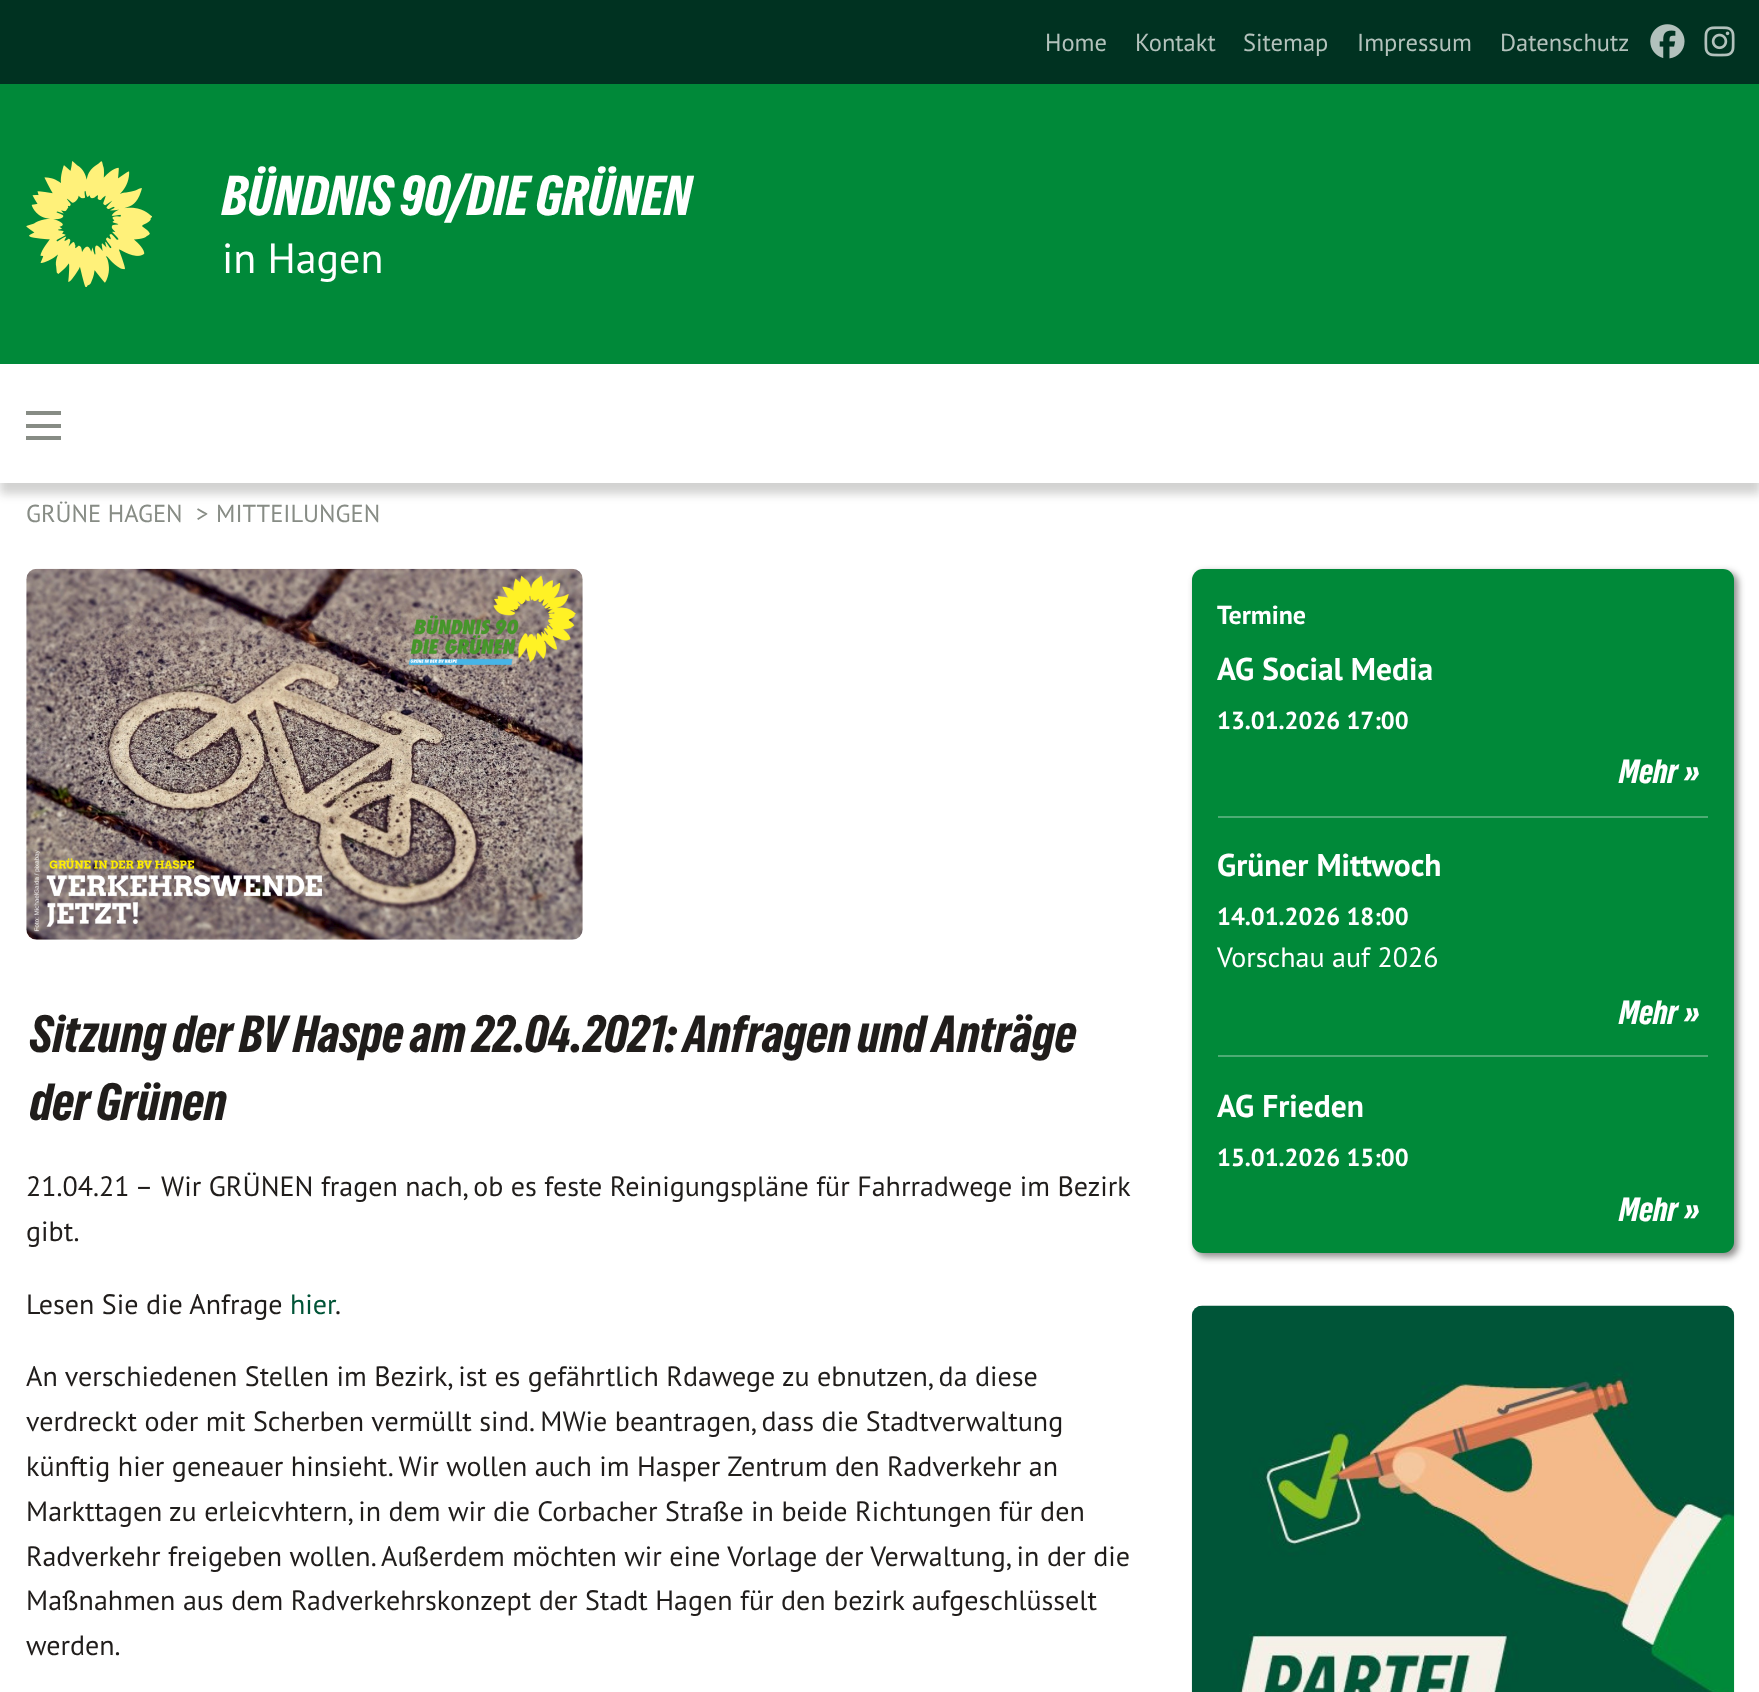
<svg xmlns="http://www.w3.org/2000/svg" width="1759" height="1692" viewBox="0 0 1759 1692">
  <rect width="100%" height="100%" fill="rgb(255,255,255)"/>
  <rect x="0" y="0" width="1759" height="84" fill="rgb(0,50,33)"/>
  <g font-family="PT Sans" font-size="24.5" fill="rgb(179,194,188)">
    <text x="1045" y="51">Home</text>
    <text x="1135" y="51">Kontakt</text>
    <text x="1243" y="51">Sitemap</text>
    <text x="1357" y="51">Impressum</text>
    <text x="1500" y="51">Datenschutz</text>
  </g>
  <image x="1650" y="24" width="35" height="35" href="pic1.png"/>
  <image x="1704" y="26" width="31" height="31" href="pic2.png"/>
  <rect x="0" y="84" width="1759" height="280" fill="rgb(0,137,57)"/>
  <image x="26" y="161" width="126" height="126" href="pic3.png"/>
  <text x="222" y="215" font-family="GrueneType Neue" font-size="52.5" fill="rgb(255,255,255)">BÜNDNIS 90/DIE GRÜNEN</text>
  <text x="222" y="273" font-family="PT Sans" font-size="42" fill="rgb(255,255,255)">in Hagen</text>
  <rect x="0" y="375" width="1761" height="119" fill="rgba(32,29,27,0.2)" filter="blur(5px)"/>
  <rect x="0" y="367" width="1759" height="116" fill="rgb(255,255,255)"/>
  <rect x="26" y="436" width="35" height="4" fill="rgb(135,140,133)"/>
  <rect x="26" y="424" width="35" height="4" fill="rgb(135,140,133)"/>
  <rect x="26" y="411" width="35" height="4" fill="rgb(135,140,133)"/>
  <g font-family="PT Sans" font-size="24.5" fill="rgb(135,140,133)">
    <text x="26" y="522">GRÜNE HAGEN</text>
    <text x="196" y="522">&gt;</text>
    <text x="216" y="522">MITTEILUNGEN</text>
  </g>
  <rect x="1195" y="572" width="543" height="685" rx="11" fill="rgba(32,29,27,0.5)" filter="blur(3.5px)"/>
  <rect x="1192" y="569" width="542" height="684" rx="11" fill="rgb(0,137,57)"/>
  <text x="1217" y="624" font-family="PT Sans" font-size="26" font-weight="bold" fill="rgb(255,255,255)">Termine</text>
  <text x="1217" y="680" font-family="PT Sans" font-size="31.5" font-weight="bold" fill="rgb(255,255,255)">AG Social Media</text>
  <text x="1217" y="729" font-family="PT Sans" font-size="24.5" font-weight="bold" fill="rgb(255,255,255)">13.01.2026 17:00</text>
  <g font-family="GrueneType Neue" font-size="31.5" fill="rgb(255,255,255)">
    <text x="1619" y="783">Mehr</text>
    <text x="1684" y="783">»</text>
  </g>
  <rect x="1218" y="816" width="490" height="2" fill="rgb(77,172,116)"/>
  <text x="1217" y="876" font-family="PT Sans" font-size="31.5" font-weight="bold" fill="rgb(255,255,255)">Grüner Mittwoch</text>
  <text x="1217" y="925" font-family="PT Sans" font-size="24.5" font-weight="bold" fill="rgb(255,255,255)">14.01.2026 18:00</text>
  <text x="1217" y="967" font-family="PT Sans" font-size="28" fill="rgb(255,255,255)">Vorschau auf 2026</text>
  <g font-family="GrueneType Neue" font-size="31.5" fill="rgb(255,255,255)">
    <text x="1619" y="1024">Mehr</text>
    <text x="1684" y="1024">»</text>
  </g>
  <rect x="1218" y="1055" width="490" height="2" fill="rgb(77,172,116)"/>
  <text x="1217" y="1117" font-family="PT Sans" font-size="31.5" font-weight="bold" fill="rgb(255,255,255)">AG Frieden</text>
  <text x="1217" y="1166" font-family="PT Sans" font-size="24.5" font-weight="bold" fill="rgb(255,255,255)">15.01.2026 15:00</text>
  <g font-family="GrueneType Neue" font-size="31.5" fill="rgb(255,255,255)">
    <text x="1619" y="1221">Mehr</text>
    <text x="1684" y="1221">»</text>
  </g>
  <image x="1191" y="1305" width="544" height="387" href="pic4.png"/>
  <image x="26" y="568" width="557" height="372" href="pic5.png"/>
  <g font-family="GrueneType Neue" font-size="49" fill="rgb(32,29,27)">
    <text>
      <tspan x="30" y="1052">Sitzung der BV Haspe am 22.04.2021: Anfragen und Anträge</tspan>
      <tspan x="30" y="1120">der Grünen</tspan>
    </text>
  </g>
  <g font-family="PT Sans" font-size="28" fill="rgb(32,29,27)">
    <text x="161" y="1196">Wir GRÜNEN fragen nach, ob es feste Reinigungspläne für Fahrradwege im Bezirk</text>
    <text x="26" y="1241">gibt.</text>
    <text x="26" y="1196">21.04.21 –</text>
    <text x="26" y="1314">Lesen Sie die Anfrage</text>
  </g>
  <text x="290" y="1314" font-family="PT Sans" font-size="28" fill="rgb(0,84,55)">hier</text>
  <g font-family="PT Sans" font-size="28" fill="rgb(32,29,27)">
    <text x="335" y="1314">.</text>
    <text>
      <tspan x="26" y="1386">An verschiedenen Stellen im Bezirk, ist es gefährtlich Rdawege zu ebnutzen, da diese</tspan>
      <tspan x="26" y="1431">verdreckt oder mit Scherben vermüllt sind. MWie beantragen, dass die Stadtverwaltung</tspan>
      <tspan x="26" y="1476">künftig hier geneauer hinsieht. Wir wollen auch im Hasper Zentrum den Radverkehr an</tspan>
      <tspan x="26" y="1521">Markttagen zu erleicvhtern, in dem wir die Corbacher Straße in beide Richtungen für den</tspan>
      <tspan x="26" y="1566">Radverkehr freigeben wollen. Außerdem möchten wir eine Vorlage der Verwaltung, in der die</tspan>
      <tspan x="26" y="1610">Maßnahmen aus dem Radverkehrskonzept der Stadt Hagen für den bezirk aufgeschlüsselt</tspan>
      <tspan x="26" y="1655">werden.</tspan>
    </text>
  </g>
</svg>
